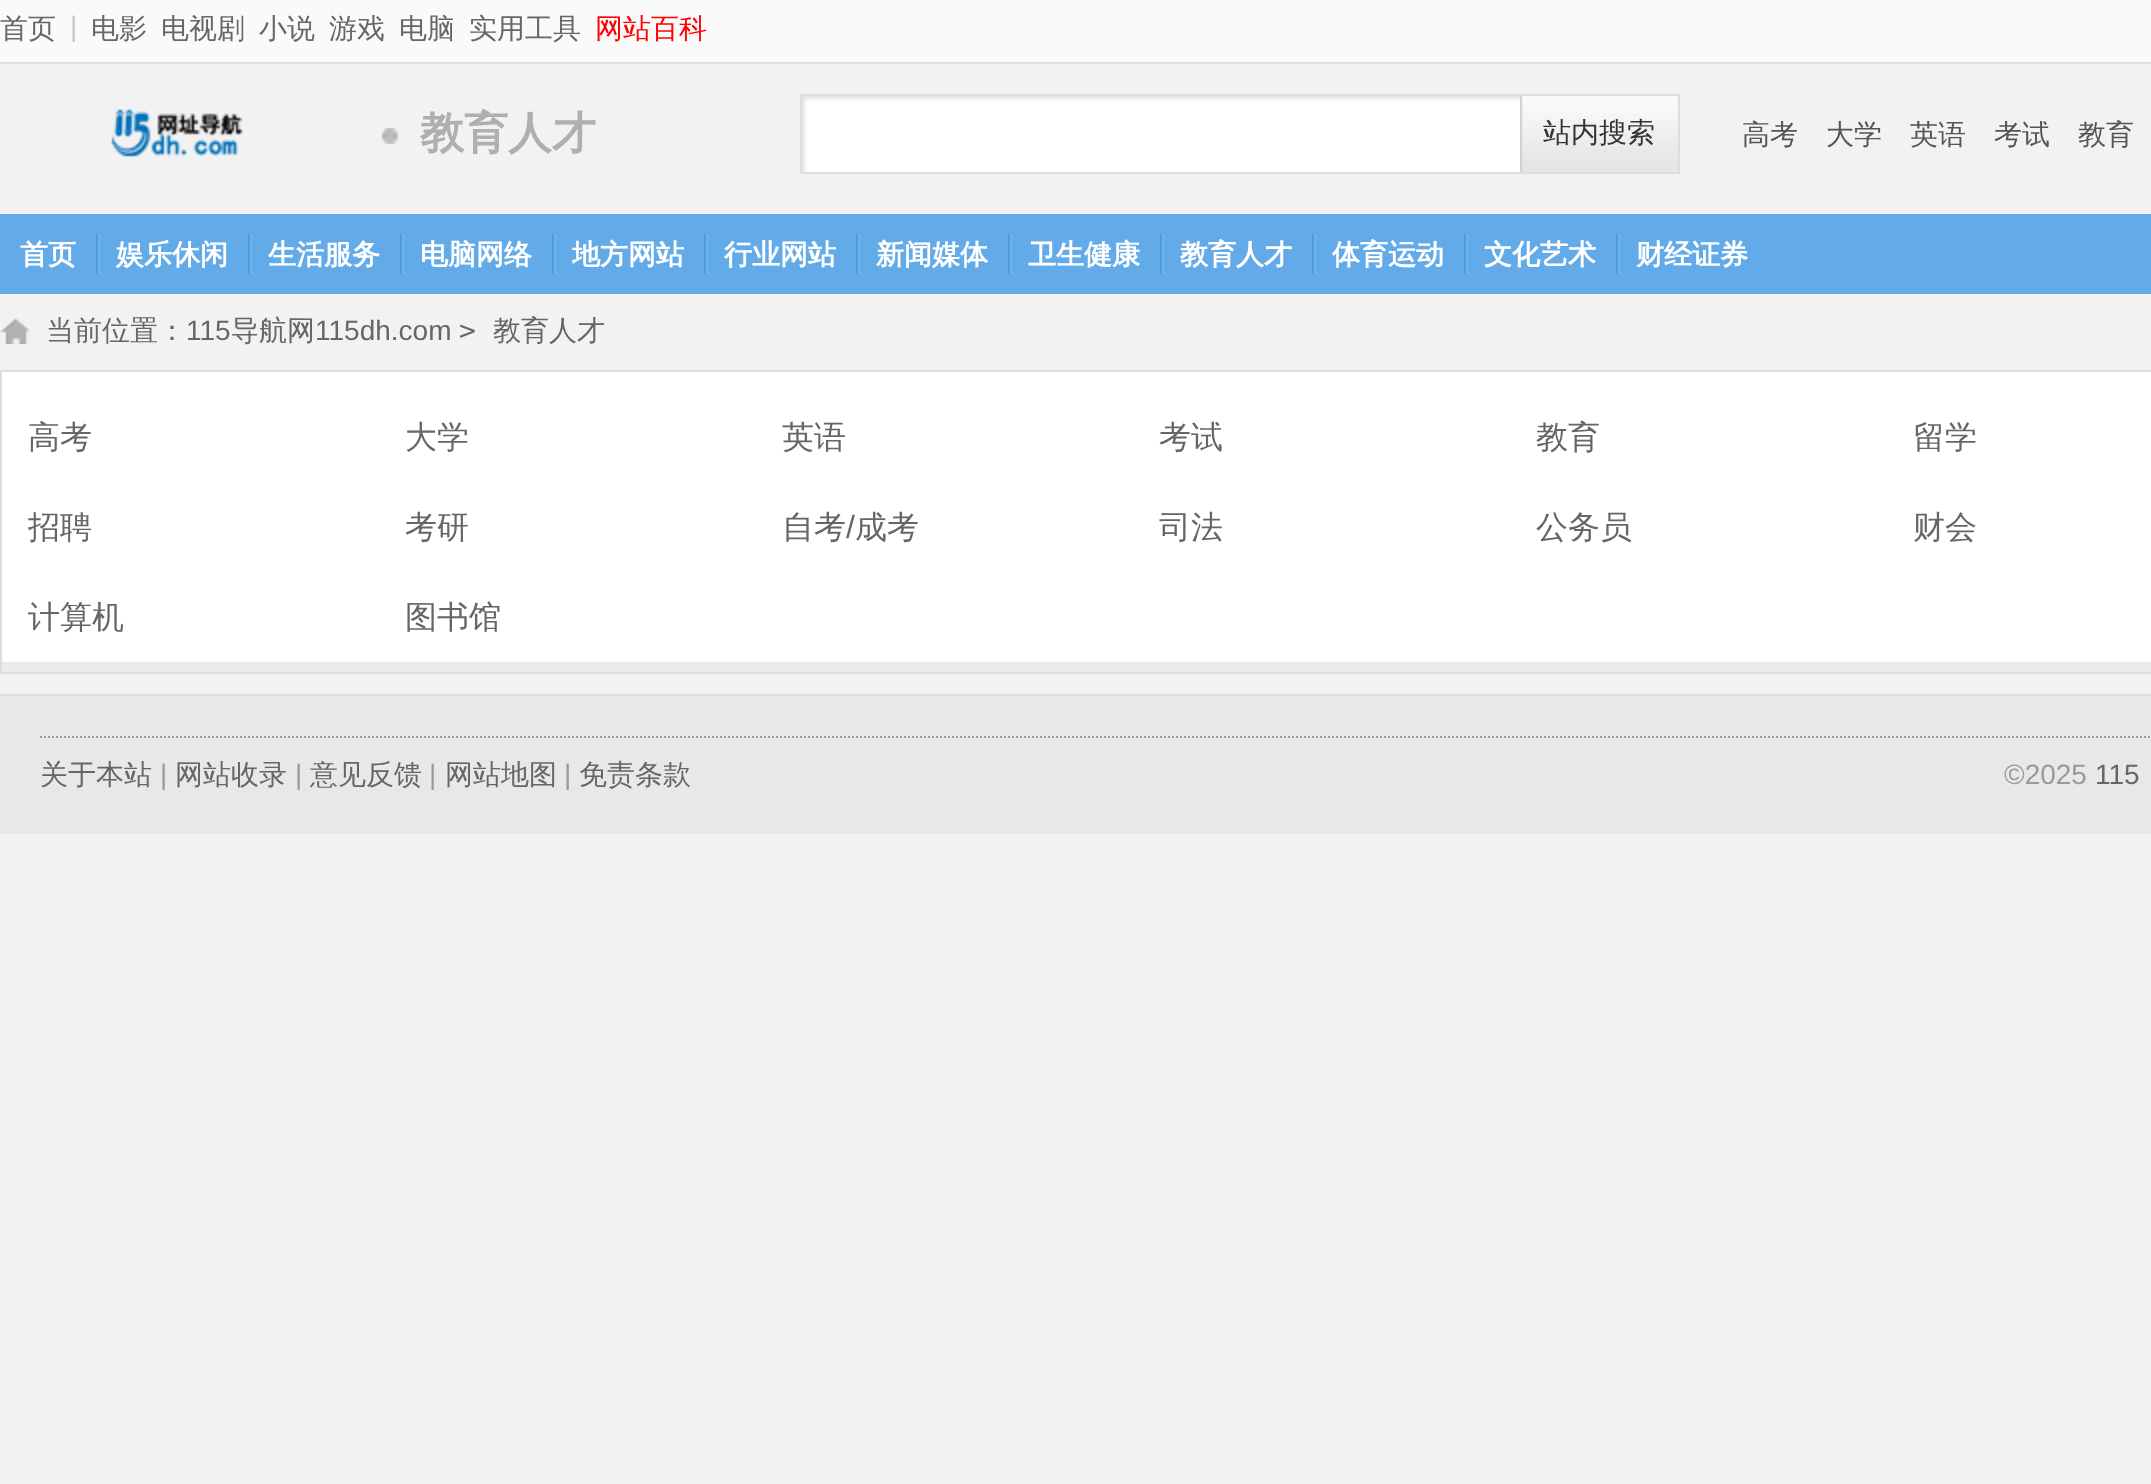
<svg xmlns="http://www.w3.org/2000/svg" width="2151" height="1484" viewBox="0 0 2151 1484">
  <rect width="100%" height="100%" fill="rgb(242,242,242)"/>
  <rect x="0" y="0" width="2151" height="62" fill="rgb(250,250,250)"/>
  <rect x="0" y="62" width="2151" height="2" fill="rgb(224,224,224)"/>
  <text x="0" y="38" font-family="WenQuanYi Zen Hei" font-size="28" font-weight="500" fill="rgb(102,102,102)">首页</text>
  <text x="70" y="36" font-family="Liberation Sans" font-size="28" fill="rgb(199,199,199)">|</text>
  <g font-family="WenQuanYi Zen Hei" font-size="28" font-weight="500" fill="rgb(102,102,102)">
    <text x="91" y="38">电影</text>
    <text x="161" y="38">电视剧</text>
    <text x="259" y="38">小说</text>
    <text x="329" y="38">游戏</text>
    <text x="399" y="38">电脑</text>
    <text x="469" y="38">实用工具</text>
  </g>
  <text x="595" y="38" font-family="WenQuanYi Zen Hei" font-size="28" font-weight="500" fill="rgb(255,0,0)">网站百科</text>
  <image x="111" y="109" width="132" height="48" href="pic1.png"/>
  <image x="382" y="128" width="16" height="16" href="pic2.png"/>
  <text x="420" y="148" font-family="WenQuanYi Zen Hei" font-size="44" font-weight="bold" fill="rgb(175,175,175)">教育人才</text>
  <image x="802" y="96" width="718" height="76" href="pic3.png"/>
  <rect x="801" y="95" width="878" height="78" fill="none" stroke="rgb(221,221,221)" stroke-width="2"/>
  <image x="1520" y="96" width="158" height="76" href="pic4.png"/>
  <text x="1543" y="142" font-family="WenQuanYi Zen Hei" font-size="28" font-weight="500" fill="rgb(51,51,51)">站内搜索</text>
  <g font-family="WenQuanYi Zen Hei" font-size="28" font-weight="500" fill="rgb(85,85,85)">
    <text x="1742" y="144">高考</text>
    <text x="1826" y="144">大学</text>
    <text x="1910" y="144">英语</text>
    <text x="1994" y="144">考试</text>
    <text x="2078" y="144">教育</text>
  </g>
  <rect x="0" y="214" width="2151" height="80" fill="rgb(99,170,233)"/>
  <text x="20" y="264" font-family="WenQuanYi Zen Hei" font-size="28" font-weight="bold" fill="rgb(255,255,255)">首页</text>
  <image x="96" y="234" width="4" height="40" href="pic5.png"/>
  <text x="116" y="264" font-family="WenQuanYi Zen Hei" font-size="28" font-weight="bold" fill="rgb(255,255,255)">娱乐休闲</text>
  <image x="248" y="234" width="4" height="40" href="pic5.png"/>
  <text x="268" y="264" font-family="WenQuanYi Zen Hei" font-size="28" font-weight="bold" fill="rgb(255,255,255)">生活服务</text>
  <image x="400" y="234" width="4" height="40" href="pic5.png"/>
  <text x="420" y="264" font-family="WenQuanYi Zen Hei" font-size="28" font-weight="bold" fill="rgb(255,255,255)">电脑网络</text>
  <image x="552" y="234" width="4" height="40" href="pic5.png"/>
  <text x="572" y="264" font-family="WenQuanYi Zen Hei" font-size="28" font-weight="bold" fill="rgb(255,255,255)">地方网站</text>
  <image x="704" y="234" width="4" height="40" href="pic5.png"/>
  <text x="724" y="264" font-family="WenQuanYi Zen Hei" font-size="28" font-weight="bold" fill="rgb(255,255,255)">行业网站</text>
  <image x="856" y="234" width="4" height="40" href="pic5.png"/>
  <text x="876" y="264" font-family="WenQuanYi Zen Hei" font-size="28" font-weight="bold" fill="rgb(255,255,255)">新闻媒体</text>
  <image x="1008" y="234" width="4" height="40" href="pic5.png"/>
  <text x="1028" y="264" font-family="WenQuanYi Zen Hei" font-size="28" font-weight="bold" fill="rgb(255,255,255)">卫生健康</text>
  <image x="1160" y="234" width="4" height="40" href="pic5.png"/>
  <text x="1180" y="264" font-family="WenQuanYi Zen Hei" font-size="28" font-weight="bold" fill="rgb(255,255,255)">教育人才</text>
  <image x="1312" y="234" width="4" height="40" href="pic5.png"/>
  <text x="1332" y="264" font-family="WenQuanYi Zen Hei" font-size="28" font-weight="bold" fill="rgb(255,255,255)">体育运动</text>
  <image x="1464" y="234" width="4" height="40" href="pic5.png"/>
  <text x="1484" y="264" font-family="WenQuanYi Zen Hei" font-size="28" font-weight="bold" fill="rgb(255,255,255)">文化艺术</text>
  <image x="1616" y="234" width="4" height="40" href="pic5.png"/>
  <text x="1636" y="264" font-family="WenQuanYi Zen Hei" font-size="28" font-weight="bold" fill="rgb(255,255,255)">财经证券</text>
  <image x="0" y="318" width="30" height="26" href="pic6.png"/>
  <text x="46" y="340" font-family="WenQuanYi Zen Hei" font-size="28" font-weight="500" fill="rgb(102,102,102)">当前位置：</text>
  <text x="186" y="340" font-family="Liberation Sans" font-size="28" fill="rgb(102,102,102)">115</text>
  <text x="231" y="340" font-family="WenQuanYi Zen Hei" font-size="28" font-weight="500" fill="rgb(102,102,102)">导航网</text>
  <text x="315" y="340" font-family="Liberation Sans" font-size="28" fill="rgb(102,102,102)">115dh.com</text>
  <text x="459" y="340" font-family="DejaVu Sans Mono" font-size="28" fill="rgb(102,102,102)">&gt;</text>
  <text x="493" y="340" font-family="WenQuanYi Zen Hei" font-size="28" font-weight="500" fill="rgb(102,102,102)">教育人才</text>
  <rect x="2" y="372" width="2149" height="290" fill="rgb(255,255,255)"/>
  <rect x="1" y="371" width="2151" height="302" fill="none" stroke="rgb(221,221,221)" stroke-width="2"/>
  <g font-family="WenQuanYi Zen Hei" font-size="32" font-weight="500" fill="rgb(102,102,102)">
    <text x="28" y="448">高考</text>
    <text x="405" y="448">大学</text>
    <text x="782" y="448">英语</text>
    <text x="1159" y="448">考试</text>
    <text x="1536" y="448">教育</text>
    <text x="1913" y="448">留学</text>
    <text x="28" y="538">招聘</text>
    <text x="405" y="538">考研</text>
    <text x="782" y="538">自考</text>
  </g>
  <text x="846" y="538" font-family="Liberation Sans" font-size="32" fill="rgb(102,102,102)">/</text>
  <g font-family="WenQuanYi Zen Hei" font-size="32" font-weight="500" fill="rgb(102,102,102)">
    <text x="855" y="538">成考</text>
    <text x="1159" y="538">司法</text>
    <text x="1536" y="538">公务员</text>
    <text x="1913" y="538">财会</text>
    <text x="28" y="628">计算机</text>
    <text x="405" y="628">图书馆</text>
  </g>
  <rect x="2" y="662" width="2149" height="10" fill="rgb(235,235,235)"/>
  <rect x="0" y="696" width="2151" height="138" fill="rgb(232,232,232)"/>
  <rect x="0" y="694" width="2151" height="2" fill="rgb(221,221,221)"/>
  <path d="M40 737H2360" fill="none" stroke="rgb(153,153,153)" stroke-width="2" stroke-dasharray="2 2"/>
  <text x="40" y="784" font-family="WenQuanYi Zen Hei" font-size="28" font-weight="500" fill="rgb(102,102,102)">关于本站</text>
  <text x="160" y="784" font-family="Liberation Sans" font-size="28" fill="rgb(153,153,153)">|</text>
  <text x="175" y="784" font-family="WenQuanYi Zen Hei" font-size="28" font-weight="500" fill="rgb(102,102,102)">网站收录</text>
  <text x="295" y="784" font-family="Liberation Sans" font-size="28" fill="rgb(153,153,153)">|</text>
  <text x="310" y="784" font-family="WenQuanYi Zen Hei" font-size="28" font-weight="500" fill="rgb(102,102,102)">意见反馈</text>
  <text x="429" y="784" font-family="Liberation Sans" font-size="28" fill="rgb(153,153,153)">|</text>
  <text x="445" y="784" font-family="WenQuanYi Zen Hei" font-size="28" font-weight="500" fill="rgb(102,102,102)">网站地图</text>
  <text x="564" y="784" font-family="Liberation Sans" font-size="28" fill="rgb(153,153,153)">|</text>
  <text x="579" y="784" font-family="WenQuanYi Zen Hei" font-size="28" font-weight="500" fill="rgb(102,102,102)">免责条款</text>
  <text x="2004" y="784" font-family="Liberation Sans" font-size="28" fill="rgb(153,153,153)">©2025</text>
  <text x="2095" y="784" font-family="Liberation Sans" font-size="28" fill="rgb(102,102,102)">115</text>
</svg>
